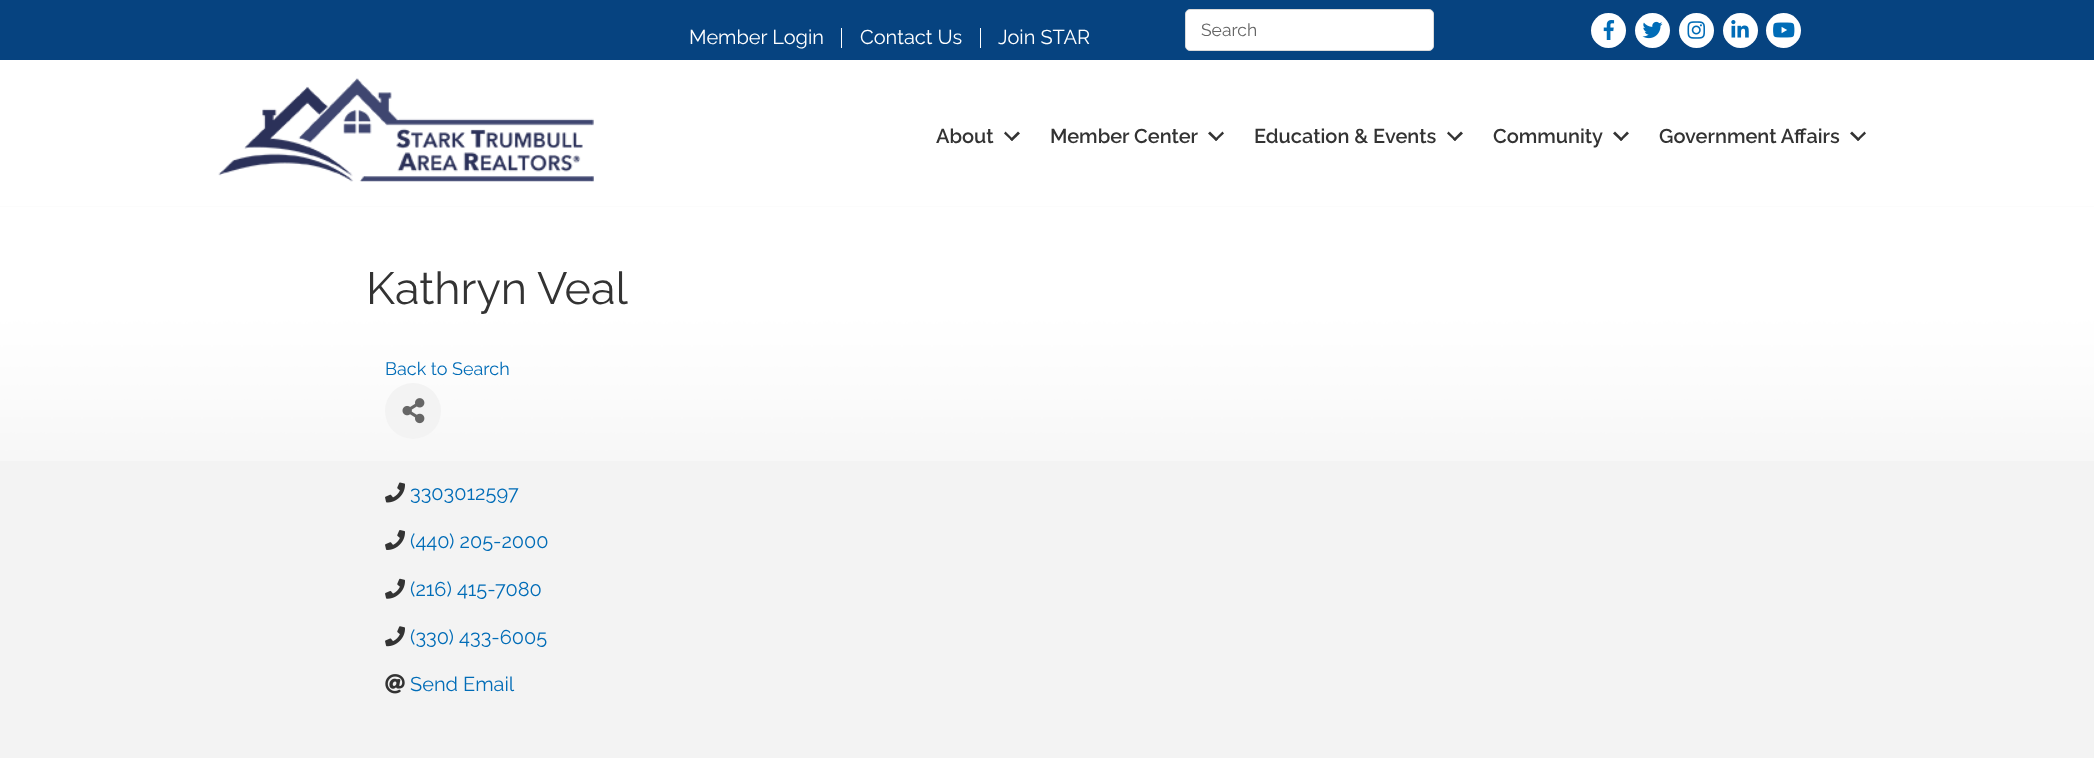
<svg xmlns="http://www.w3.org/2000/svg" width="2094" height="758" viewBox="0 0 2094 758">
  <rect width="100%" height="100%" fill="rgb(6,67,128)"/>
  <text x="689" y="44" font-family="Raleway" font-size="20" fill="rgb(255,255,255)">Member Login</text>
  <rect x="841" y="28" width="1" height="20" fill="rgb(255,255,255)"/>
  <text x="860" y="44" font-family="Raleway" font-size="20" fill="rgb(255,255,255)">Contact Us</text>
  <rect x="980" y="28" width="1" height="20" fill="rgb(255,255,255)"/>
  <text x="998" y="44" font-family="Raleway" font-size="20" fill="rgb(255,255,255)">Join STAR</text>
  <rect x="1185.5" y="9.5" width="248" height="41" rx="4.5" fill="rgb(255,255,255)" stroke="rgb(218,218,218)"/>
  <text x="1201" y="36" font-family="Raleway" font-size="17.5" fill="rgb(101,101,101)">Search</text>
  <circle cx="1608.5" cy="30.5" r="17.5" fill="rgb(255,255,255)"/>
  <image x="1603" y="20" width="12" height="20" href="pic1.png"/>
  <circle cx="1652.5" cy="30.5" r="17.5" fill="rgb(255,255,255)"/>
  <image x="1642" y="21" width="21" height="18" href="pic2.png"/>
  <circle cx="1696.5" cy="30.5" r="17.5" fill="rgb(255,255,255)"/>
  <image x="1687" y="21" width="18" height="18" href="pic3.png"/>
  <circle cx="1740.5" cy="30.5" r="17.5" fill="rgb(255,255,255)"/>
  <image x="1731" y="20" width="18" height="18" href="pic4.png"/>
  <circle cx="1783.5" cy="30.5" r="17.5" fill="rgb(255,255,255)"/>
  <image x="1773" y="22" width="22" height="16" href="pic5.png"/>
  <rect x="0" y="60" width="2094" height="146" fill="rgb(255,255,255)"/>
  <image x="218" y="78" width="376" height="104" href="pic6.png"/>
  <text x="936" y="143" font-family="Raleway" font-size="20" font-weight="600" fill="rgb(51,51,51)">About</text>
  <path d="M1018 131.5L1020 133.5L1012 141L1010 139.5Z" fill="rgb(51,51,51)"/>
  <path d="M1005.5 131.5L1013.5 139.5L1012 141L1004 133.5Z" fill="rgb(51,51,51)"/>
  <text x="1050" y="143" font-family="Raleway" font-size="20" font-weight="600" fill="rgb(51,51,51)">Member Center</text>
  <path d="M1222.5 131.5L1224 133.5L1216 141L1214.5 139.5Z" fill="rgb(51,51,51)"/>
  <path d="M1210 131.5L1218 139.5L1216 141L1208 133.5Z" fill="rgb(51,51,51)"/>
  <text x="1254" y="143" font-family="Raleway" font-size="20" font-weight="600" fill="rgb(51,51,51)">Education &amp; Events</text>
  <path d="M1461 131.5L1463 133.5L1455 141L1453 139.5Z" fill="rgb(51,51,51)"/>
  <path d="M1448.5 131.5L1456.5 139.5L1455 141L1447 133.5Z" fill="rgb(51,51,51)"/>
  <text x="1493" y="143" font-family="Raleway" font-size="20" font-weight="600" fill="rgb(51,51,51)">Community</text>
  <path d="M1627 131.5L1629 133.5L1621 141L1619.5 139.5Z" fill="rgb(51,51,51)"/>
  <path d="M1615 131.5L1623 139.5L1621 141L1613 133.5Z" fill="rgb(51,51,51)"/>
  <text x="1659" y="143" font-family="Raleway" font-size="20" font-weight="600" fill="rgb(51,51,51)">Government Affairs</text>
  <path d="M1864.5 131.5L1866 133.5L1858 141L1856.5 139.5Z" fill="rgb(51,51,51)"/>
  <path d="M1852 131.5L1860 139.5L1858 141L1850 133.5Z" fill="rgb(51,51,51)"/>
  <rect x="0" y="206" width="2094" height="552" fill="rgb(243,243,243)"/>
  <image x="0" y="206" width="2094" height="255" href="pic7.png"/>
  <text x="366" y="304" font-family="Raleway" font-size="45" fill="rgb(51,51,51)">Kathryn Veal</text>
  <text x="385" y="375" font-family="Raleway" font-size="18" fill="rgb(0,108,183)">Back to Search</text>
  <circle cx="413" cy="411" r="28" fill="rgb(243,243,243)"/>
  <image x="402" y="398" width="23" height="26" href="pic8.png"/>
  <image x="385" y="482" width="20" height="21" href="pic9.png"/>
  <text x="410" y="500" font-family="Raleway" font-size="20" fill="rgb(0,108,183)">3303012597</text>
  <image x="385" y="530" width="20" height="20" href="pic10.png"/>
  <text x="410" y="548" font-family="Raleway" font-size="20" fill="rgb(0,108,183)">(440) 205-2000</text>
  <image x="385" y="578" width="20" height="21" href="pic11.png"/>
  <text x="410" y="596" font-family="Raleway" font-size="20" fill="rgb(0,108,183)">(216) 415-7080</text>
  <image x="385" y="626" width="20" height="21" href="pic12.png"/>
  <text x="410" y="644" font-family="Raleway" font-size="20" fill="rgb(0,108,183)">(330) 433-6005</text>
  <image x="385" y="674" width="20" height="20" href="pic13.png"/>
  <text x="410" y="691" font-family="Raleway" font-size="20" fill="rgb(0,108,183)">Send Email</text>
</svg>
